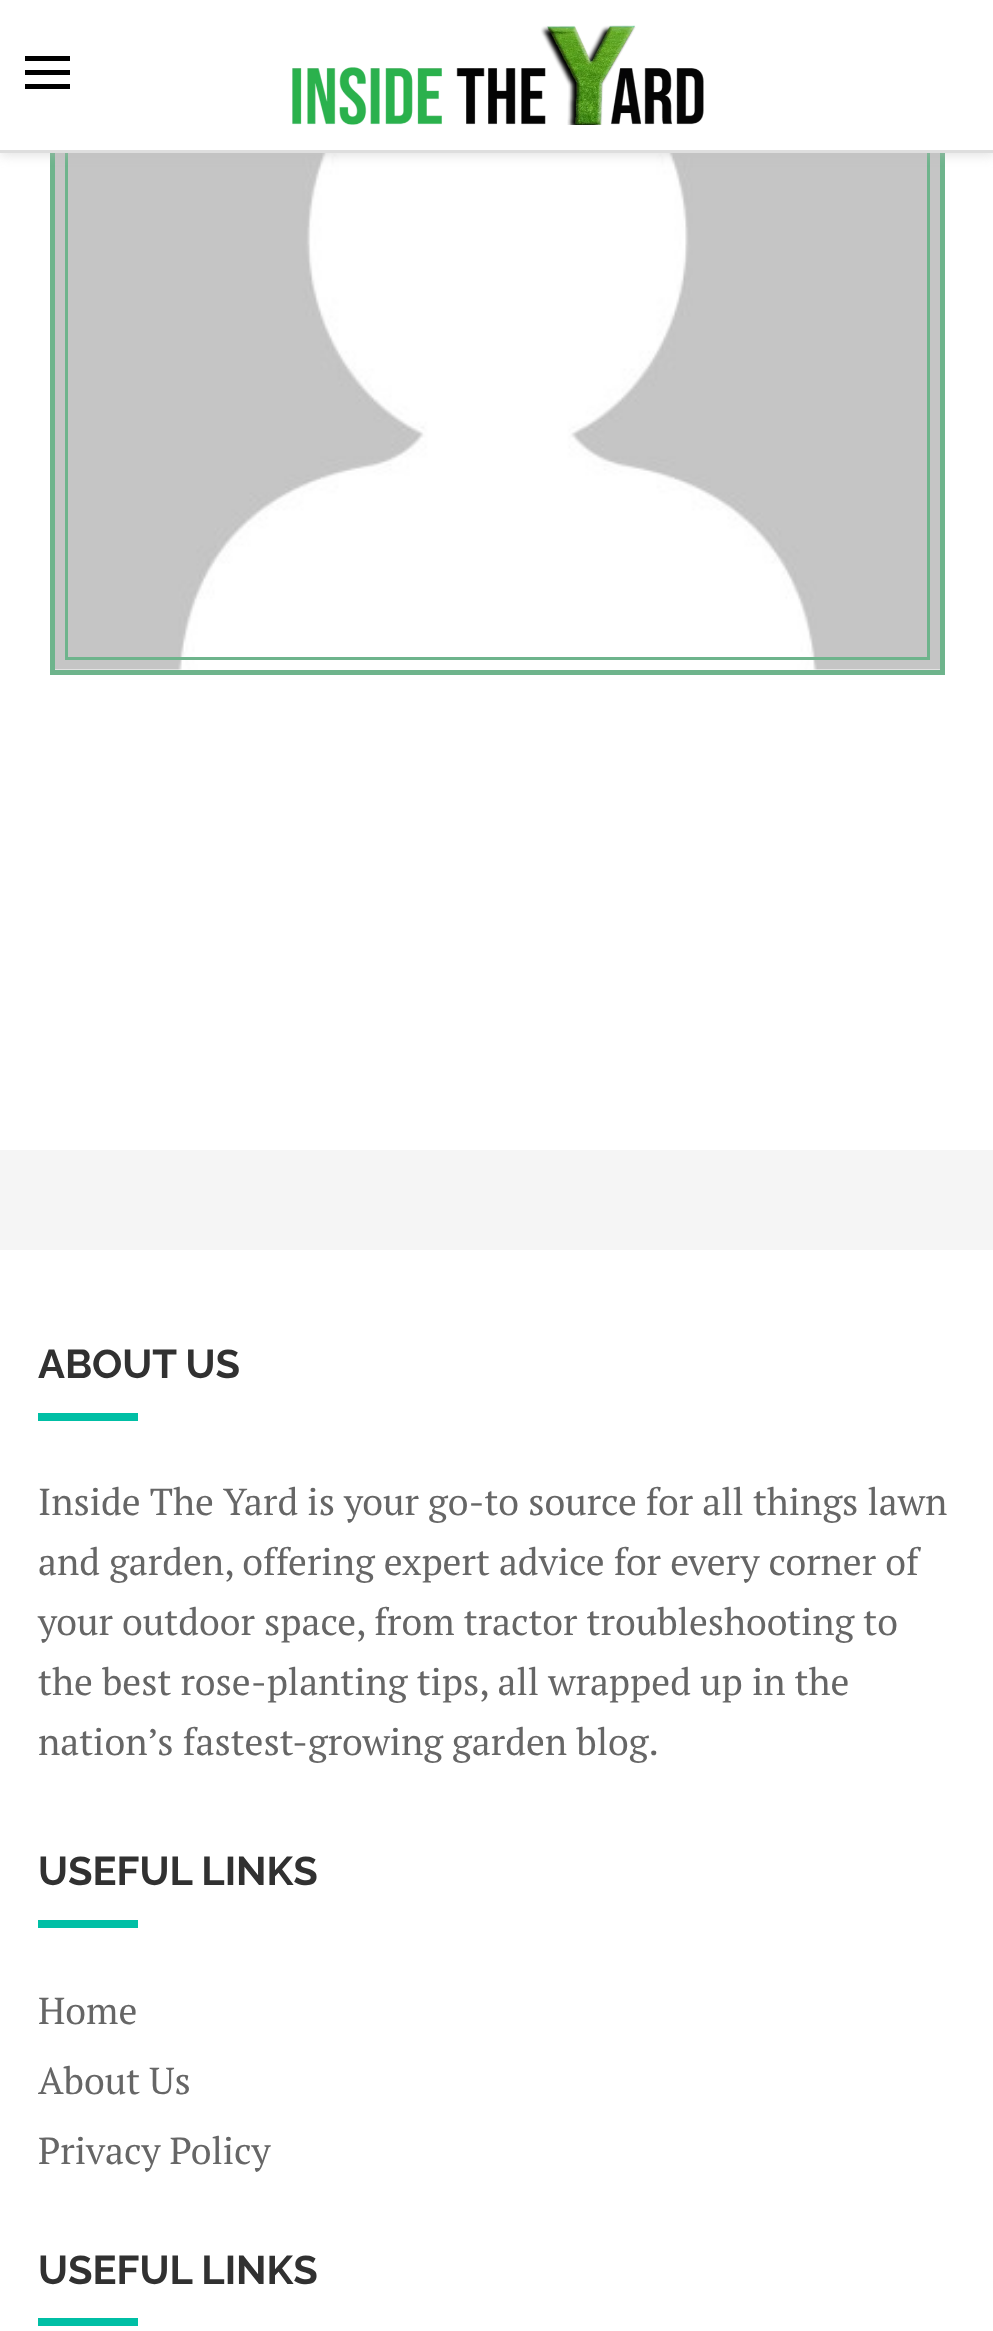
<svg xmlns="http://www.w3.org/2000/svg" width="993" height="2331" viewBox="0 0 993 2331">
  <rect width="100%" height="100%" fill="rgb(255,255,255)"/>
  <rect x="52.5" y="-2.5" width="890" height="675" fill="none" stroke="rgb(110,180,140)" stroke-width="5"/>
  <image x="55" y="153" width="885" height="517" href="pic1.png"/>
  <rect x="66.5" y="-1.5" width="862" height="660" fill="none" stroke="rgb(110,180,140)" stroke-width="3"/>
  <rect x="0" y="3" width="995" height="152" fill="rgba(190,190,190,0.46)" filter="blur(6px)"/>
  <rect x="0" y="0" width="993" height="150" fill="rgb(255,255,255)"/>
  <rect x="0" y="150" width="993" height="3" fill="rgb(222,222,222)"/>
  <rect x="25" y="56" width="45" height="5" fill="rgb(0,0,0)"/>
  <rect x="25" y="70" width="45" height="5" fill="rgb(0,0,0)"/>
  <rect x="25" y="84" width="45" height="5" fill="rgb(0,0,0)"/>
  <image x="292" y="25" width="412" height="100" href="pic2.png"/>
  <rect x="0" y="1150" width="993" height="100" fill="rgb(245,245,245)"/>
  <text x="38" y="1378" font-family="Raleway" font-size="40" font-weight="bold" fill="rgb(49,49,49)">ABOUT US</text>
  <rect x="38" y="1413" width="100" height="8" fill="rgb(0,191,165)"/>
  <g font-family="PT Serif" font-size="37.5" fill="rgb(102,102,102)">
    <text>
      <tspan x="38" y="1515">Inside The Yard is your go-to source for all things lawn</tspan>
      <tspan x="38" y="1575">and garden, offering expert advice for every corner of</tspan>
      <tspan x="38" y="1635">your outdoor space, from tractor troubleshooting to</tspan>
      <tspan x="38" y="1695">the best rose-planting tips, all wrapped up in the</tspan>
      <tspan x="38" y="1755">nation’s fastest-growing garden blog.</tspan>
    </text>
  </g>
  <text x="38" y="1885" font-family="Raleway" font-size="40" font-weight="bold" fill="rgb(49,49,49)">USEFUL LINKS</text>
  <rect x="38" y="1920" width="100" height="8" fill="rgb(0,191,165)"/>
  <g font-family="PT Serif" font-size="37.5" fill="rgb(102,102,102)">
    <text>
      <tspan x="38" y="2024">Home</tspan>
      <tspan x="38" y="2094">About Us</tspan>
      <tspan x="38" y="2164">Privacy Policy</tspan>
    </text>
  </g>
  <text x="38" y="2284" font-family="Raleway" font-size="40" font-weight="bold" fill="rgb(49,49,49)">USEFUL LINKS</text>
  <rect x="38" y="2318" width="100" height="8" fill="rgb(0,191,165)"/>
</svg>
